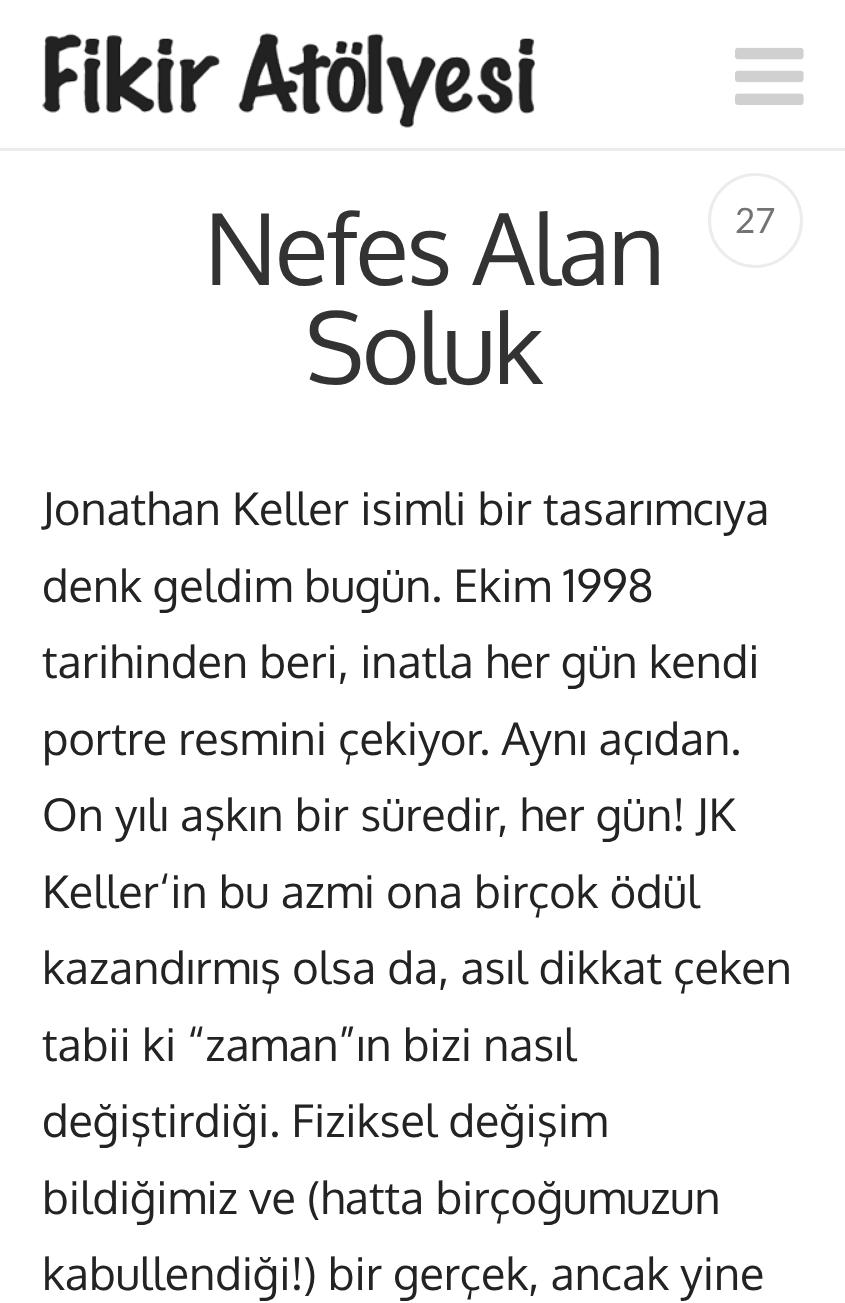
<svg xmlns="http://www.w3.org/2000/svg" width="845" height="1303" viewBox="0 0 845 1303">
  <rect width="100%" height="100%" fill="rgb(255,255,255)"/>
  <rect x="0" y="148" width="845" height="3" fill="rgb(236,236,236)"/>
  <image x="42" y="32" width="493" height="96" href="pic1.png"/>
  <image x="735" y="47" width="69" height="58" href="pic2.png"/>
  <circle cx="755.5" cy="220.5" r="46" fill="none" stroke="rgb(236,236,236)" stroke-width="3"/>
  <text x="735" y="233" font-family="Lato" font-size="35" fill="rgb(115,115,115)">27</text>
  <g font-family="Oxygen" font-size="99" letter-spacing="-2.5" fill="rgb(51,51,51)">
    <text x="204" y="285">Nefes Alan</text>
    <text x="305" y="384">Soluk</text>
  </g>
  <g font-family="Oxygen" font-size="45" fill="rgb(35,35,35)">
    <text>
      <tspan x="42" y="525">Jonathan Keller isimli bir tasarımcıya</tspan>
      <tspan x="42" y="602">denk geldim bugün. Ekim 1998</tspan>
      <tspan x="42" y="678">tarihinden beri, inatla her gün kendi</tspan>
      <tspan x="42" y="755">portre resmini çekiyor. Aynı açıdan.</tspan>
      <tspan x="42" y="831">On yılı aşkın bir süredir, her gün! JK</tspan>
      <tspan x="42" y="908">Keller‘in bu azmi ona birçok ödül</tspan>
      <tspan x="42" y="984">kazandırmış olsa da, asıl dikkat çeken</tspan>
      <tspan x="42" y="1061">tabii ki “zaman”ın bizi nasıl</tspan>
      <tspan x="42" y="1137">değiştirdiği. Fiziksel değişim</tspan>
      <tspan x="42" y="1214">bildiğimiz ve (hatta birçoğumuzun</tspan>
      <tspan x="42" y="1290">kabullendiği!) bir gerçek, ancak yine</tspan>
    </text>
  </g>
</svg>
